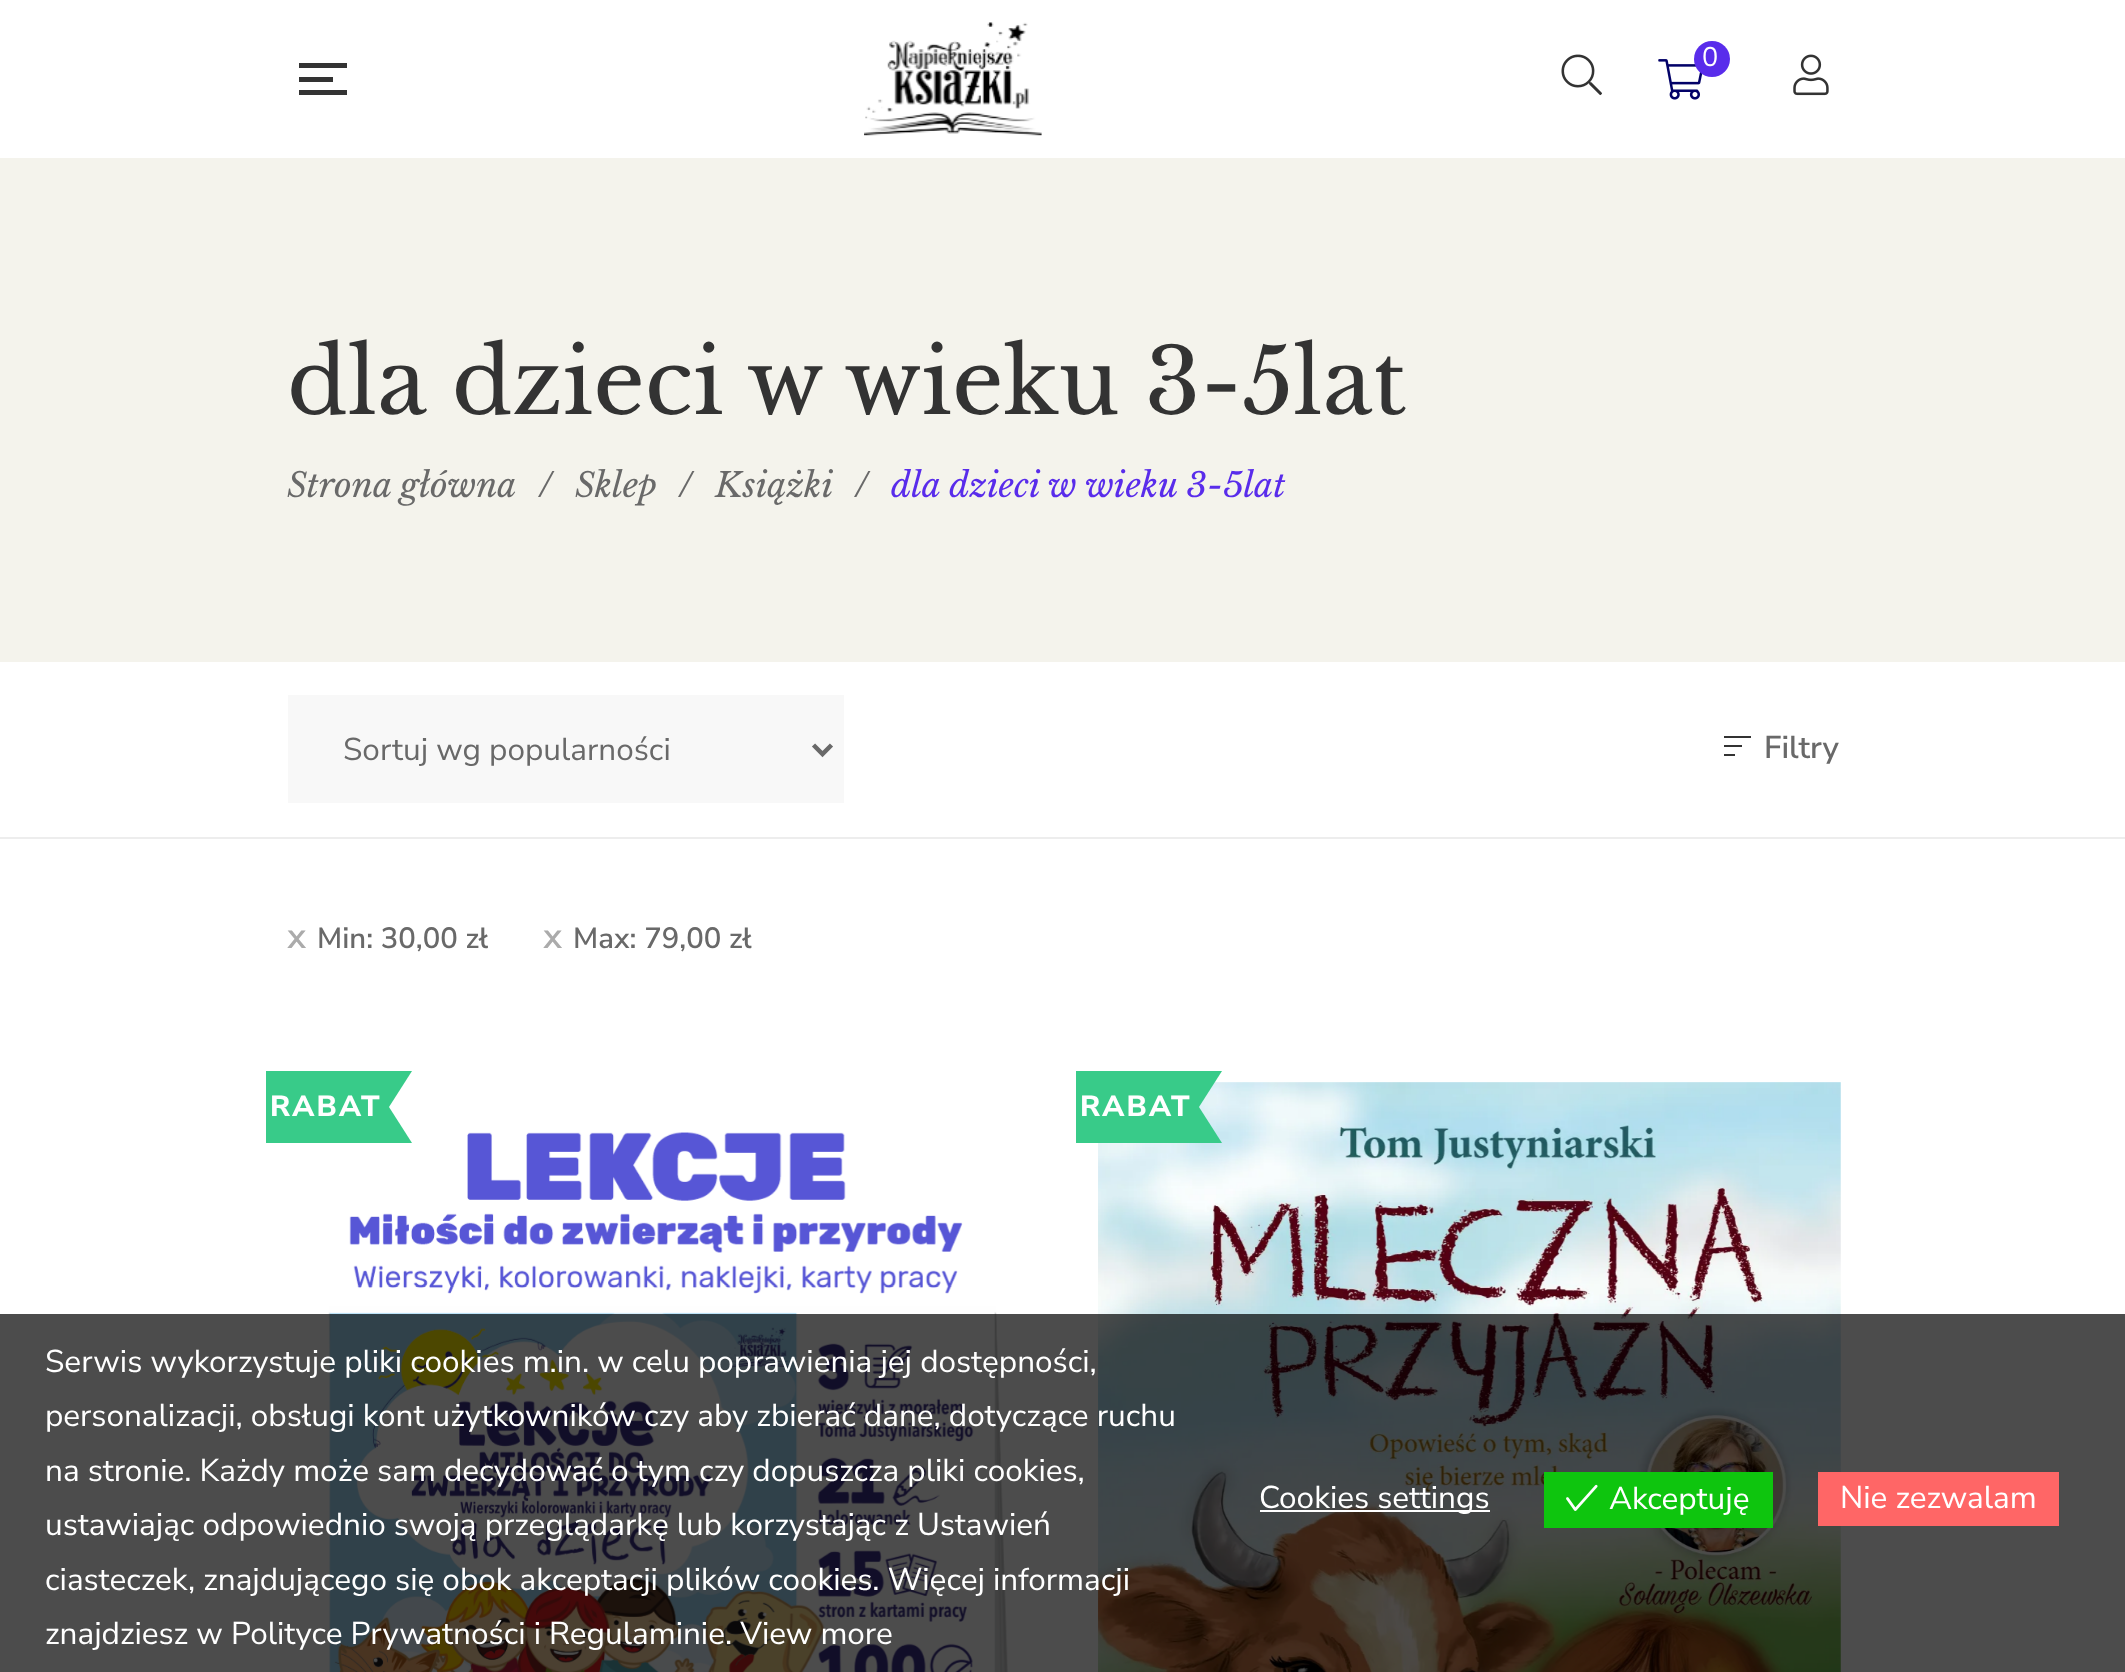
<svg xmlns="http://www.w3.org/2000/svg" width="2125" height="1672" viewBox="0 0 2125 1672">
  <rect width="100%" height="100%" fill="rgb(255,255,255)"/>
  <image x="864" y="22" width="178" height="114" href="pic1.png"/>
  <image x="1561" y="54" width="41" height="42" href="pic2.png"/>
  <image x="1658" y="59" width="45" height="41" href="pic3.png"/>
  <circle cx="1712" cy="59" r="18" fill="rgb(89,44,235)"/>
  <text x="1702" y="66" font-family="Nunito Sans" font-size="27" fill="rgb(255,255,255)">0</text>
  <image x="1793" y="54" width="36" height="42" href="pic4.png"/>
  <rect x="299" y="77" width="34" height="5" fill="rgb(51,51,51)"/>
  <rect x="299" y="63" width="48" height="5" fill="rgb(51,51,51)"/>
  <rect x="299" y="90" width="48" height="5" fill="rgb(51,51,51)"/>
  <rect x="0" y="158" width="2125" height="504" fill="rgb(244,243,236)"/>
  <text x="287" y="414" font-family="Libre Baskerville" font-size="90" fill="rgb(51,51,51)">dla dzieci w wieku 3-5lat</text>
  <g font-family="Libre Baskerville" font-size="33.75" font-style="italic" fill="rgb(105,105,105)">
    <text x="287" y="497">Strona główna</text>
    <text x="539" y="497">/</text>
    <text x="575" y="497">Sklep</text>
    <text x="679" y="497">/</text>
    <text x="715" y="497">Książki</text>
    <text x="855" y="497">/</text>
  </g>
  <text x="891" y="497" font-family="Libre Baskerville" font-size="33.75" font-style="italic" fill="rgb(89,44,235)">dla dzieci w wieku 3-5lat</text>
  <rect x="0" y="837" width="2125" height="2" fill="rgb(237,237,237)"/>
  <rect x="288" y="695" width="556" height="108" fill="rgb(248,248,248)"/>
  <path d="M813.5 745L822.5 754L831.5 745" fill="none" stroke="rgb(105,105,105)" stroke-width="4.5"/>
  <text x="343" y="760" font-family="Nunito Sans" font-size="31.5" fill="rgb(105,105,105)">Sortuj wg popularności</text>
  <rect x="1724" y="745" width="18" height="2" fill="rgb(51,51,51)"/>
  <rect x="1724" y="736" width="27" height="2" fill="rgb(51,51,51)"/>
  <rect x="1724" y="754" width="11" height="2" fill="rgb(51,51,51)"/>
  <text x="1764" y="758" font-family="Nunito Sans" font-size="31.5" font-weight="600" fill="rgb(105,105,105)">Filtry</text>
  <text x="287" y="948" font-family="Nunito Sans" font-size="36" font-weight="600" fill="rgb(171,171,171)">x</text>
  <text x="317" y="948" font-family="Nunito Sans" font-size="29.25" font-weight="600" fill="rgb(105,105,105)">Min: 30,00 zł</text>
  <text x="543" y="948" font-family="Nunito Sans" font-size="36" font-weight="600" fill="rgb(171,171,171)">x</text>
  <text x="573" y="948" font-family="Nunito Sans" font-size="29.25" font-weight="600" fill="rgb(105,105,105)">Max: 79,00 zł</text>
  <image x="328" y="1132" width="680" height="540" href="pic5.png"/>
  <rect x="266" y="1071" width="123" height="72" fill="rgb(56,203,137)"/>
  <text x="270" y="1116" font-family="Nunito Sans" font-size="29.25" font-weight="800" letter-spacing="2.25" fill="rgb(255,255,255)">RABAT</text>
  <path d="M389 1071H412L389 1107Z" fill="rgb(56,203,137)"/>
  <path d="M412 1143H389V1107Z" fill="rgb(56,203,137)"/>
  <image x="1098" y="1082" width="743" height="590" href="pic6.png"/>
  <rect x="1076" y="1071" width="123" height="72" fill="rgb(56,203,137)"/>
  <text x="1080" y="1116" font-family="Nunito Sans" font-size="29.25" font-weight="800" letter-spacing="2.25" fill="rgb(255,255,255)">RABAT</text>
  <path d="M1199 1071H1222L1199 1107Z" fill="rgb(56,203,137)"/>
  <path d="M1222 1143H1199V1107Z" fill="rgb(56,203,137)"/>
  <rect x="0" y="1314" width="2125" height="358" fill="rgba(0,0,0,0.7)"/>
  <g font-family="Nunito Sans" font-size="31.5" fill="rgb(255,255,255)">
    <text>
      <tspan x="45" y="1372">Serwis wykorzystuje pliki cookies m.in. w celu poprawienia jej dostępności,</tspan>
      <tspan x="45" y="1426">personalizacji, obsługi kont użytkowników czy aby zbierać dane, dotyczące ruchu</tspan>
      <tspan x="45" y="1481">na stronie. Każdy może sam decydować o tym czy dopuszcza pliki cookies,</tspan>
      <tspan x="45" y="1535">ustawiając odpowiednio swoją przeglądarkę lub korzystając z Ustawień</tspan>
      <tspan x="45" y="1590">ciasteczek, znajdującego się obok akceptacji plików cookies. Więcej informacji</tspan>
      <tspan x="45" y="1644">znajdziesz w Polityce Prywatności i Regulaminie. View more</tspan>
    </text>
  </g>
  <rect x="1260" y="1510" width="230" height="2" fill="rgb(255,255,255)"/>
  <text x="1259" y="1508" font-family="Nunito Sans" font-size="31.5" fill="rgb(255,255,255)">Cookies settings</text>
  <rect x="1544" y="1472" width="229" height="56" fill="rgb(14,197,14)"/>
  <image x="1566" y="1484" width="32" height="27" href="pic7.png"/>
  <text x="1609" y="1509" font-family="Nunito Sans" font-size="31.5" fill="rgb(255,255,255)">Akceptuję</text>
  <rect x="1818" y="1472" width="241" height="54" fill="rgb(255,102,102)"/>
  <text x="1840" y="1508" font-family="Nunito Sans" font-size="31.5" fill="rgb(255,255,255)">Nie zezwalam</text>
</svg>
